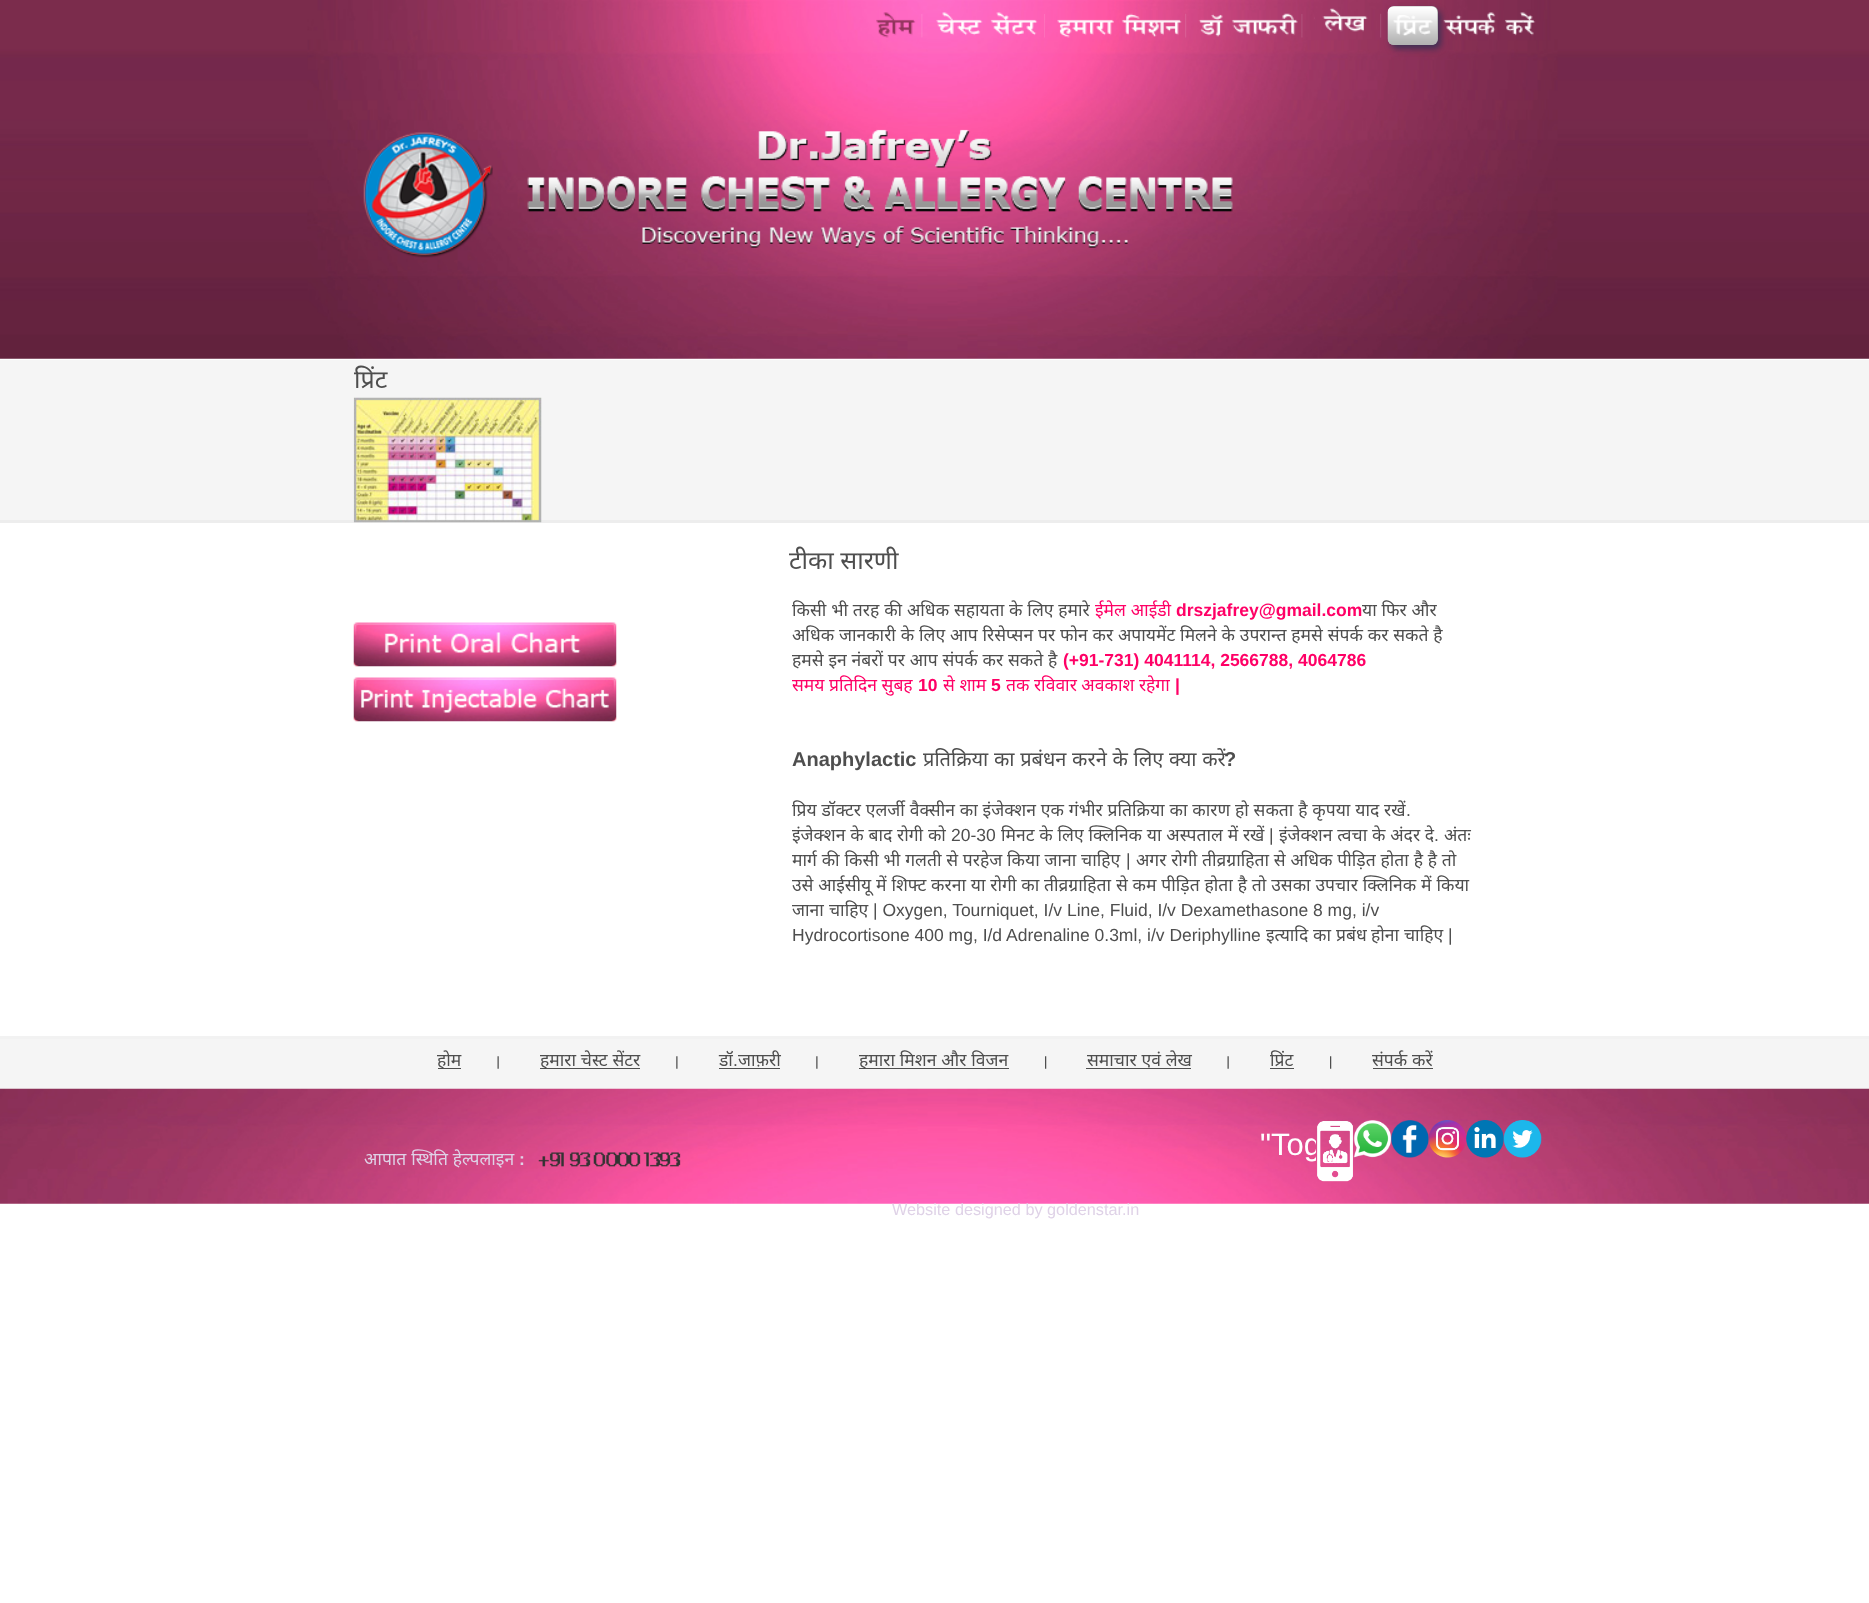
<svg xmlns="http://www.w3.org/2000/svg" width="1869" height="1603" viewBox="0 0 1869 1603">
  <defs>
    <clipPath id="clip1"><rect x="715" y="1120" width="601" height="49"/></clipPath>
  </defs>
  <rect width="100%" height="100%" fill="rgb(255,255,255)"/>
  <image x="0" y="0" width="1869" height="359" href="pic1.png"/>
  <image x="921" y="14" width="2" height="24" href="pic2.png"/>
  <image x="876" y="12" width="40" height="26" href="pic3.png"/>
  <image x="1044" y="14" width="1" height="24" href="pic4.png"/>
  <image x="936" y="12" width="102" height="24" href="pic5.png"/>
  <image x="1185" y="13" width="2" height="25" href="pic6.png"/>
  <image x="1057" y="13" width="125" height="25" href="pic7.png"/>
  <image x="1301" y="14" width="2" height="24" href="pic8.png"/>
  <image x="1198" y="13" width="100" height="24" href="pic9.png"/>
  <image x="1380" y="13" width="2" height="25" href="pic10.png"/>
  <image x="1314" y="8" width="54" height="24" href="pic11.png"/>
  <rect x="1391" y="10" width="50" height="39" rx="6" fill="rgb(64,47,85)" filter="blur(3px)"/>
  <rect x="1388" y="6" width="50" height="39" rx="6" fill="rgb(179,179,179)"/>
  <image x="1387" y="6" width="51" height="39" href="pic12.png"/>
  <image x="1393" y="15" width="40" height="21" href="pic13.png"/>
  <image x="1443" y="12" width="93" height="24" href="pic14.png"/>
  <image x="363" y="132" width="130" height="126" href="pic15.png"/>
  <image x="527" y="129" width="706" height="119" href="pic16.png"/>
  <rect x="0" y="360" width="1869" height="160" fill="rgb(245,245,245)"/>
  <rect x="0" y="520" width="1869" height="3" fill="rgb(237,237,237)"/>
  <text x="354" y="388" font-family="Noto Sans" font-size="25" fill="rgb(78,78,78)">प्रिंट</text>
  <image x="353" y="397" width="189" height="126" href="pic17.png"/>
  <image x="353" y="622" width="264" height="45" href="pic18.png"/>
  <image x="353" y="677" width="264" height="45" href="pic19.png"/>
  <text x="789" y="569" font-family="Noto Sans" font-size="25" fill="rgb(78,78,78)">टीका सारणी</text>
  <text x="792" y="616" word-spacing="0.3" font-family="Noto Sans" font-size="17.5" fill="rgb(78,78,78)">किसी भी तरह की अधिक सहायता के लिए हमारे</text>
  <text x="1095" y="616" word-spacing="0.3" font-family="Noto Sans" font-size="17.5" fill="rgb(255,0,102)">ईमेल आईडी</text>
  <text x="1176" y="616" font-family="Liberation Sans" font-size="17.5" font-weight="bold" fill="rgb(255,0,102)">drszjafrey@gmail.com</text>
  <g font-family="Noto Sans" font-size="17.5" fill="rgb(78,78,78)">
    <text x="1362" y="616" word-spacing="0.3">या फिर और</text>
    <text>
      <tspan x="792" y="641" word-spacing="0.3">अधिक जानकारी के लिए आप रिसेप्सन पर फोन कर अपायमेंट मिलने के उपरान्त हमसे संपर्क कर सकते है</tspan>
      <tspan x="792" y="666" word-spacing="0.3">हमसे इन नंबरों पर आप संपर्क कर सकते है</tspan>
    </text>
  </g>
  <text x="1063" y="666" font-family="Liberation Sans" font-size="17.5" font-weight="bold" fill="rgb(255,0,102)">(+91-731) 4041114, 2566788, 4064786</text>
  <text x="792" y="691" font-family="Noto Sans" font-size="17.5" fill="rgb(255,0,102)">समय प्रतिदिन सुबह</text>
  <text x="918" y="691" font-family="Liberation Sans" font-size="17.5" font-weight="bold" fill="rgb(255,0,102)">10</text>
  <text x="943" y="691" font-family="Noto Sans" font-size="17.5" fill="rgb(255,0,102)">से शाम</text>
  <text x="991" y="691" font-family="Liberation Sans" font-size="17.5" font-weight="bold" fill="rgb(255,0,102)">5</text>
  <text x="1006" y="691" font-family="Noto Sans" font-size="17.5" fill="rgb(255,0,102)">तक रविवार अवकाश रहेगा</text>
  <text x="1175" y="691" font-family="Liberation Sans" font-size="17.5" font-weight="bold" fill="rgb(255,0,102)">|</text>
  <text x="792" y="766" font-family="Liberation Sans" font-size="20" font-weight="bold" fill="rgb(78,78,78)">Anaphylactic</text>
  <text x="923" y="766" word-spacing="0.5" font-family="Noto Sans" font-size="20" fill="rgb(78,78,78)">प्रतिक्रिया का प्रबंधन करने के लिए क्या करें</text>
  <text x="1224" y="766" font-family="Liberation Sans" font-size="20" font-weight="bold" fill="rgb(78,78,78)">?</text>
  <text x="792" y="816" word-spacing="0.3" font-family="Noto Sans" font-size="17.5" fill="rgb(78,78,78)">प्रिय डॉक्टर एलर्जी वैक्सीन का इंजेक्शन एक गंभीर प्रतिक्रिया का कारण हो सकता है कृपया याद रखें</text>
  <text x="1406" y="816" font-family="Liberation Sans" font-size="17.5" fill="rgb(78,78,78)">.</text>
  <text x="792" y="841" word-spacing="0.25" font-family="Noto Sans" font-size="17.5" fill="rgb(78,78,78)">इंजेक्शन के बाद रोगी को</text>
  <text x="951" y="841" font-family="Liberation Sans" font-size="17.5" fill="rgb(78,78,78)">20-30</text>
  <text x="1001" y="841" word-spacing="0.25" font-family="Noto Sans" font-size="17.5" fill="rgb(78,78,78)">मिनट के लिए क्लिनिक या अस्पताल में रखें</text>
  <text x="1269" y="841" font-family="Liberation Sans" font-size="17.5" fill="rgb(78,78,78)">|</text>
  <text x="1279" y="841" word-spacing="0.25" font-family="Noto Sans" font-size="17.5" fill="rgb(78,78,78)">इंजेक्शन त्वचा के अंदर दे</text>
  <text x="1434" y="841" font-family="Liberation Sans" font-size="17.5" fill="rgb(78,78,78)">.</text>
  <g font-family="Noto Sans" font-size="17.5" fill="rgb(78,78,78)">
    <text x="1444" y="841">अंतः</text>
    <text x="792" y="866" word-spacing="0.25">मार्ग की किसी भी गलती से परहेज किया जाना चाहिए</text>
  </g>
  <text x="1126" y="866" font-family="Liberation Sans" font-size="17.5" fill="rgb(78,78,78)">|</text>
  <g font-family="Noto Sans" font-size="17.5" fill="rgb(78,78,78)">
    <text x="1136" y="866" word-spacing="0.25">अगर रोगी तीव्रग्राहिता से अधिक पीड़ित होता है है तो</text>
    <text>
      <tspan x="792" y="891" word-spacing="0.3">उसे आईसीयू में शिफ्ट करना या रोगी का तीव्रग्राहिता से कम पीड़ित होता है तो उसका उपचार क्लिनिक में किया</tspan>
      <tspan x="792" y="916">जाना</tspan>
    </text>
    <text x="829" y="916">चाहिए</text>
  </g>
  <g font-family="Liberation Sans" font-size="17.5" fill="rgb(78,78,78)">
    <text x="873" y="916">| Oxygen, Tourniquet, I/v Line, Fluid, I/v Dexamethasone 8 mg, i/v</text>
    <text x="792" y="941">Hydrocortisone 400 mg, I/d Adrenaline 0.3ml, i/v Deriphylline</text>
  </g>
  <g font-family="Noto Sans" font-size="17.5" fill="rgb(78,78,78)">
    <text x="1266" y="941">इत्यादि</text>
    <text x="1313" y="941">का</text>
    <text x="1336" y="941">प्रबंध</text>
    <text x="1371" y="941">होना</text>
    <text x="1404" y="941">चाहिए</text>
  </g>
  <text x="1448" y="941" font-family="Liberation Sans" font-size="17.5" fill="rgb(78,78,78)">|</text>
  <rect x="0" y="1039" width="1869" height="50" fill="rgb(245,245,245)"/>
  <rect x="0" y="1036" width="1869" height="3" fill="rgb(242,242,242)"/>
  <image x="497" y="1056" width="2" height="13" href="pic20.png"/>
  <rect x="438" y="1068" width="23" height="1" fill="rgb(78,78,78)"/>
  <text x="437" y="1066" font-family="Noto Sans" font-size="17.5" fill="rgb(78,78,78)">होम</text>
  <image x="676" y="1056" width="2" height="13" href="pic21.png"/>
  <rect x="540" y="1068" width="100" height="1" fill="rgb(78,78,78)"/>
  <text x="540" y="1066" word-spacing="0.3" font-family="Noto Sans" font-size="17.5" fill="rgb(78,78,78)">हमारा चेस्ट सेंटर</text>
  <image x="816" y="1056" width="2" height="13" href="pic21.png"/>
  <text x="719" y="1066" font-family="Noto Sans" font-size="17.5" fill="rgb(78,78,78)">डॉ</text>
  <text x="733" y="1066" font-family="Liberation Sans" font-size="17.5" fill="rgb(78,78,78)">.</text>
  <rect x="719" y="1068" width="61" height="1" fill="rgb(78,78,78)"/>
  <text x="738" y="1066" font-family="Noto Sans" font-size="17.5" fill="rgb(78,78,78)">जाफ़री</text>
  <image x="1045" y="1056" width="2" height="13" href="pic22.png"/>
  <rect x="859" y="1068" width="150" height="1" fill="rgb(78,78,78)"/>
  <text x="859" y="1066" word-spacing="0.3" font-family="Noto Sans" font-size="17.5" fill="rgb(78,78,78)">हमारा मिशन और विजन</text>
  <image x="1227" y="1056" width="2" height="13" href="pic20.png"/>
  <text x="1087" y="1066" word-spacing="0.3" font-family="Noto Sans" font-size="17.5" fill="rgb(78,78,78)">समाचार एवं लेख</text>
  <rect x="1086" y="1068" width="105" height="1" fill="rgb(78,78,78)"/>
  <image x="1330" y="1056" width="2" height="13" href="pic22.png"/>
  <text x="1270" y="1066" font-family="Noto Sans" font-size="17.5" fill="rgb(78,78,78)">प्रिंट</text>
  <rect x="1270" y="1068" width="24" height="1" fill="rgb(78,78,78)"/>
  <text x="1372" y="1066" word-spacing="0.3" font-family="Noto Sans" font-size="17.5" fill="rgb(78,78,78)">संपर्क करें</text>
  <rect x="1373" y="1068" width="60" height="1" fill="rgb(78,78,78)"/>
  <image x="0" y="1088" width="1869" height="116" href="pic23.png"/>
  <text x="364" y="1165" word-spacing="0.3" font-family="Noto Sans" font-size="17.5" fill="rgb(223,210,231)">आपात स्थिति हेल्पलाइन</text>
  <text x="519" y="1165" font-family="Liberation Sans" font-size="17.5" font-weight="bold" fill="rgb(223,210,231)">:</text>
  <image x="538" y="1152" width="143" height="15" href="pic24.png"/>
  <g clip-path="url(#clip1)">
    <text x="1260" y="1155" font-family="Liberation Sans" font-size="31" fill="rgb(255,255,255)">"Tog</text>
  </g>
  <image x="1317" y="1121" width="36" height="61" href="pic25.png"/>
  <image x="1353" y="1120" width="39" height="38" href="pic26.png"/>
  <image x="1391" y="1120" width="38" height="38" href="pic27.png"/>
  <image x="1428" y="1120" width="39" height="38" href="pic28.png"/>
  <image x="1466" y="1120" width="38" height="38" href="pic29.png"/>
  <image x="1503" y="1120" width="39" height="38" href="pic30.png"/>
  <text x="892" y="1215" font-family="Liberation Sans" font-size="16.25" fill="rgb(223,210,231)">Website designed by goldenstar.in</text>
</svg>
